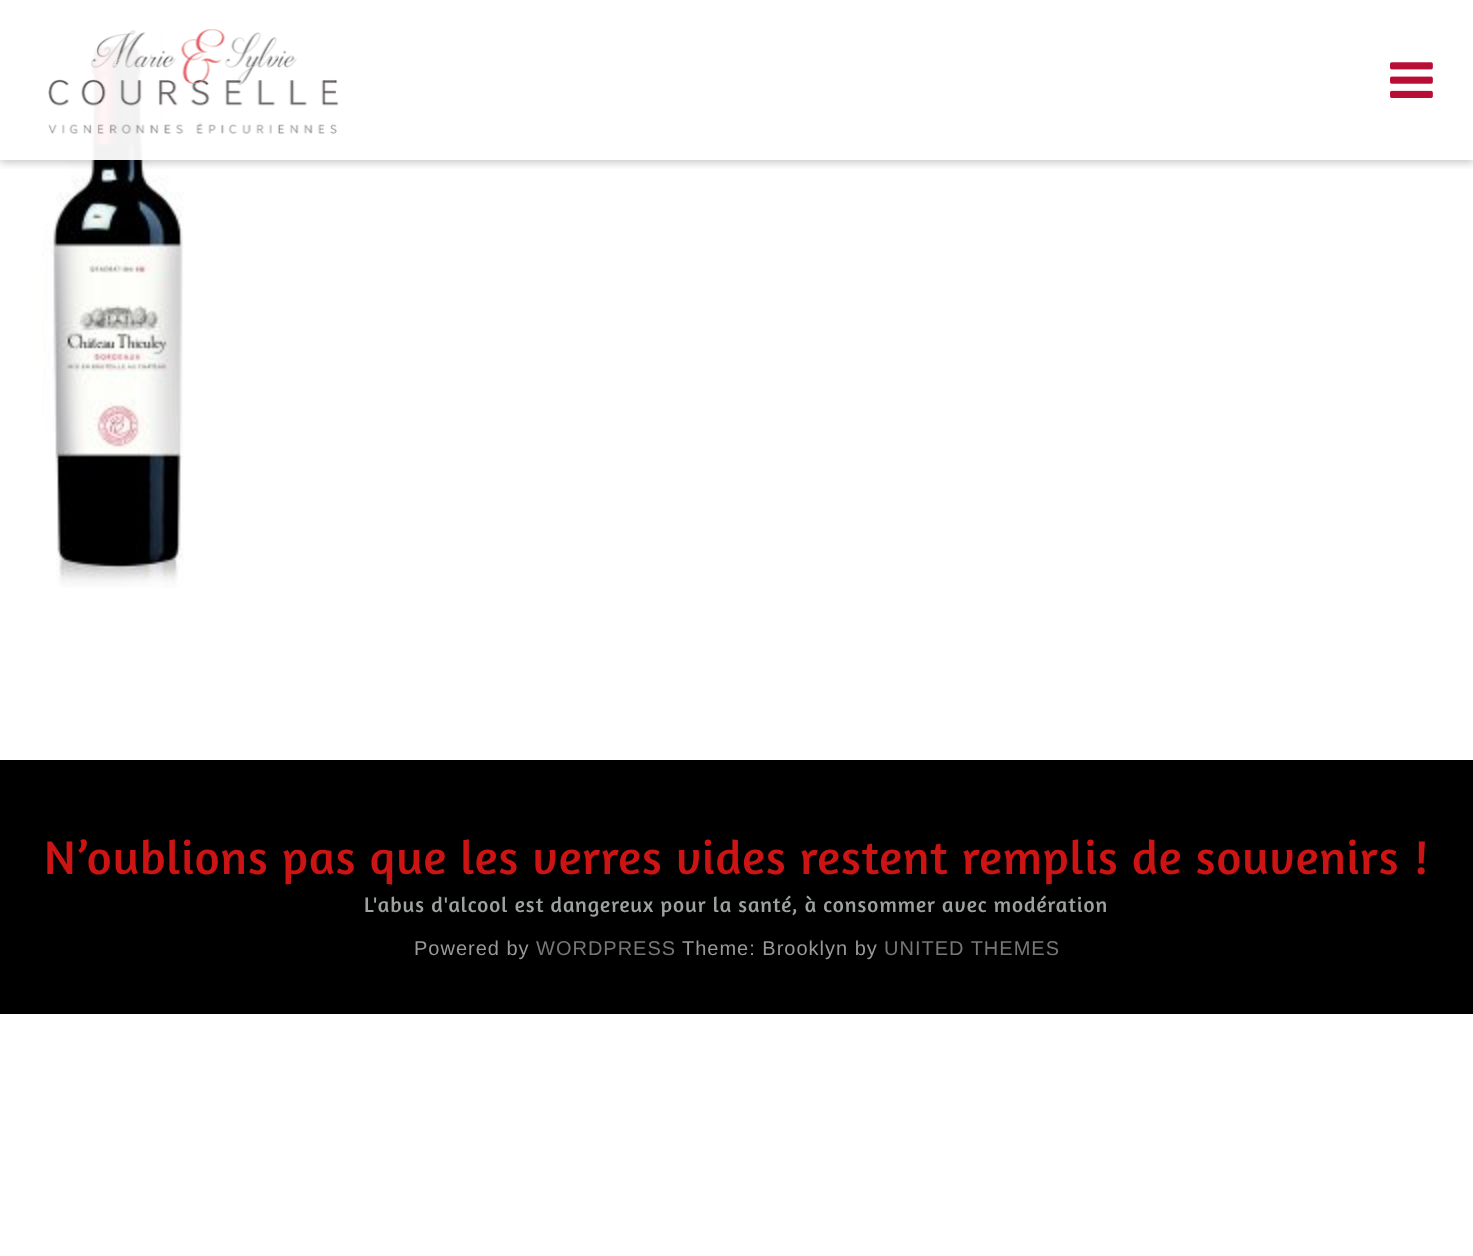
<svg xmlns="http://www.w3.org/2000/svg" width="1473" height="1256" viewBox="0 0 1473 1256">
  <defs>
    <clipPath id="clip1"><rect x="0" y="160" width="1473" height="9"/></clipPath>
  </defs>
  <rect width="100%" height="100%" fill="rgb(255,255,255)"/>
  <image x="42" y="31" width="142" height="557" href="pic3.png"/>
  <g clip-path="url(#clip1)">
    <rect x="0" y="2" width="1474" height="160" fill="rgba(0,0,0,0.25)" filter="blur(5px)"/>
  </g>
  <rect x="70" y="31" width="90" height="129" fill="rgba(255,255,255,0.95)"/>
  <image x="48" y="29" width="290" height="105" href="pic1.png"/>
  <image x="1390" y="62" width="43" height="36" href="pic2.png"/>
  <rect x="0" y="760" width="1473" height="254" fill="rgb(0,0,0)"/>
  <text x="44" y="874" font-family="Amaranth" font-size="48" letter-spacing="1" fill="rgb(204,20,20)">N’oublions pas que les verres vides restent remplis de souvenirs !</text>
  <text x="364" y="912" word-spacing="-0.25" font-family="Amaranth" font-size="21.35" letter-spacing="1" fill="rgb(157,162,161)">L'abus d'alcool est dangereux pour la santé, à consommer avec modération</text>
  <text x="414" y="955" font-family="Liberation Sans" font-size="20" letter-spacing="1" fill="rgb(153,153,153)">Powered by</text>
  <text x="536" y="955" font-family="Liberation Sans" font-size="20" letter-spacing="1" fill="rgb(119,119,119)">WORDPRESS</text>
  <text x="682" y="955" font-family="Liberation Sans" font-size="20" letter-spacing="1" fill="rgb(153,153,153)">Theme: Brooklyn by</text>
  <text x="884" y="955" font-family="Liberation Sans" font-size="20" letter-spacing="1" fill="rgb(119,119,119)">UNITED THEMES</text>
</svg>
